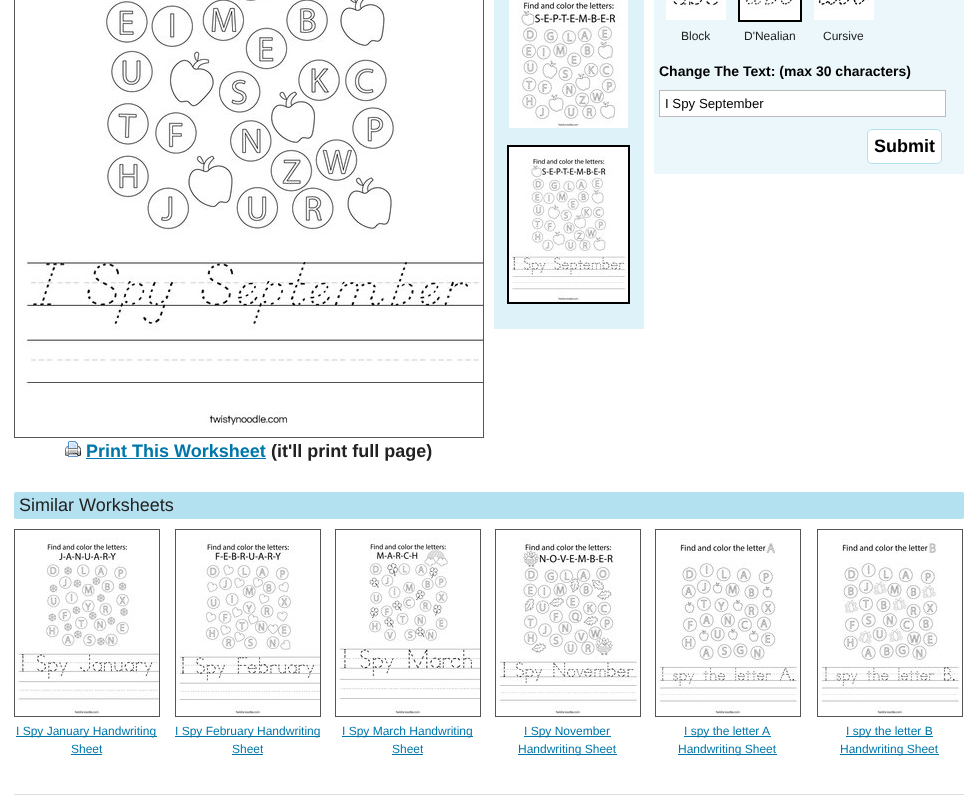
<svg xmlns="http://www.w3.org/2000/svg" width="977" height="804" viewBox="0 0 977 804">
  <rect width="100%" height="100%" fill="rgb(255,255,255)"/>
  <rect x="494" y="0" width="150" height="329" fill="rgb(221,242,249)"/>
  <image x="509" y="0" width="119" height="128" href="pic1.png"/>
  <rect x="508" y="146" width="121" height="157" fill="none" stroke="rgb(0,0,0)" stroke-width="2"/>
  <image x="509" y="147" width="119" height="155" href="pic2.png"/>
  <rect x="654" y="0" width="310" height="174" fill="rgb(236,247,251)"/>
  <image x="666" y="0" width="60" height="20" href="pic3.png"/>
  <text x="681" y="40" font-family="Liberation Sans" font-size="12" fill="rgb(34,34,34)">Block</text>
  <rect x="739" y="-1" width="62" height="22" fill="none" stroke="rgb(0,0,0)" stroke-width="2"/>
  <image x="740" y="0" width="60" height="20" href="pic4.png"/>
  <text x="744" y="40" font-family="Liberation Sans" font-size="12" fill="rgb(34,34,34)">D'Nealian</text>
  <image x="814" y="0" width="60" height="20" href="pic5.png"/>
  <text x="823" y="40" font-family="Liberation Sans" font-size="12" fill="rgb(34,34,34)">Cursive</text>
  <text x="659" y="76" font-family="Liberation Sans" font-size="14" font-weight="bold" fill="rgb(0,0,0)">Change The Text: (max 30 characters)</text>
  <rect x="659.5" y="90.5" width="286" height="26" fill="rgb(255,255,255)" stroke="rgb(187,187,187)"/>
  <text x="665" y="108" font-family="Liberation Sans" font-size="13.25" fill="rgb(0,0,0)">I Spy September</text>
  <rect x="867.5" y="129.5" width="74" height="34" rx="4.5" fill="rgb(255,255,255)" stroke="rgb(179,225,240)"/>
  <text x="874" y="152" font-family="Liberation Sans" font-size="18" font-weight="bold" fill="rgb(0,0,0)">Submit</text>
  <rect x="14.5" y="-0.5" width="469" height="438" fill="none" stroke="rgb(85,85,85)"/>
  <image x="23" y="0" width="460" height="427" href="pic6.png"/>
  <image x="65" y="441" width="16" height="16" href="pic7.png"/>
  <text x="86" y="457" font-family="Liberation Sans" font-size="18" font-weight="bold" fill="rgb(0,119,170)">Print This Worksheet</text>
  <rect x="86" y="458" width="180" height="1" fill="rgb(0,119,170)"/>
  <text x="271" y="457" font-family="Liberation Sans" font-size="18" font-weight="bold" fill="rgb(34,34,34)">(it'll print full page)</text>
  <rect x="14" y="492" width="950" height="27" rx="2" fill="rgb(179,225,240)"/>
  <text x="19" y="511" font-family="Liberation Sans" font-size="18" fill="rgb(34,34,34)">Similar Worksheets</text>
  <rect x="14.5" y="529.5" width="145" height="187" fill="none" stroke="rgb(85,85,85)"/>
  <image x="15" y="538" width="144" height="176" href="pic8.png"/>
  <rect x="16" y="736" width="141" height="1" fill="rgb(0,119,170)"/>
  <g font-family="Liberation Sans" font-size="12" fill="rgb(0,119,170)">
    <text x="16" y="735">I Spy January Handwriting</text>
    <text x="71" y="753">Sheet</text>
  </g>
  <rect x="71" y="754" width="31" height="1" fill="rgb(0,119,170)"/>
  <rect x="175.5" y="529.5" width="145" height="187" fill="none" stroke="rgb(85,85,85)"/>
  <image x="176" y="538" width="144" height="176" href="pic9.png"/>
  <rect x="175" y="736" width="145" height="1" fill="rgb(0,119,170)"/>
  <g font-family="Liberation Sans" font-size="12" fill="rgb(0,119,170)">
    <text x="175" y="735">I Spy February Handwriting</text>
    <text x="232" y="753">Sheet</text>
  </g>
  <rect x="232" y="754" width="31" height="1" fill="rgb(0,119,170)"/>
  <rect x="335.5" y="529.5" width="145" height="187" fill="none" stroke="rgb(85,85,85)"/>
  <image x="336" y="538" width="144" height="176" href="pic10.png"/>
  <rect x="342" y="736" width="131" height="1" fill="rgb(0,119,170)"/>
  <g font-family="Liberation Sans" font-size="12" fill="rgb(0,119,170)">
    <text x="342" y="735">I Spy March Handwriting</text>
    <text x="392" y="753">Sheet</text>
  </g>
  <rect x="392" y="754" width="31" height="1" fill="rgb(0,119,170)"/>
  <rect x="495.5" y="529.5" width="145" height="187" fill="none" stroke="rgb(85,85,85)"/>
  <image x="496" y="538" width="144" height="176" href="pic11.png"/>
  <rect x="524" y="736" width="87" height="1" fill="rgb(0,119,170)"/>
  <text x="524" y="735" font-family="Liberation Sans" font-size="12" fill="rgb(0,119,170)">I Spy November</text>
  <rect x="518" y="754" width="99" height="1" fill="rgb(0,119,170)"/>
  <text x="518" y="753" font-family="Liberation Sans" font-size="12" fill="rgb(0,119,170)">Handwriting Sheet</text>
  <rect x="655.5" y="529.5" width="145" height="187" fill="none" stroke="rgb(85,85,85)"/>
  <image x="656" y="538" width="144" height="176" href="pic12.png"/>
  <rect x="684" y="736" width="87" height="1" fill="rgb(0,119,170)"/>
  <text x="684" y="735" font-family="Liberation Sans" font-size="12" fill="rgb(0,119,170)">I spy the letter A</text>
  <rect x="678" y="754" width="99" height="1" fill="rgb(0,119,170)"/>
  <text x="678" y="753" font-family="Liberation Sans" font-size="12" fill="rgb(0,119,170)">Handwriting Sheet</text>
  <rect x="817.5" y="529.5" width="145" height="187" fill="none" stroke="rgb(85,85,85)"/>
  <image x="818" y="538" width="144" height="176" href="pic13.png"/>
  <rect x="846" y="736" width="87" height="1" fill="rgb(0,119,170)"/>
  <text x="846" y="735" font-family="Liberation Sans" font-size="12" fill="rgb(0,119,170)">I spy the letter B</text>
  <rect x="840" y="754" width="99" height="1" fill="rgb(0,119,170)"/>
  <text x="840" y="753" font-family="Liberation Sans" font-size="12" fill="rgb(0,119,170)">Handwriting Sheet</text>
  <rect x="14" y="794" width="950" height="1" fill="rgb(221,221,221)"/>
</svg>
